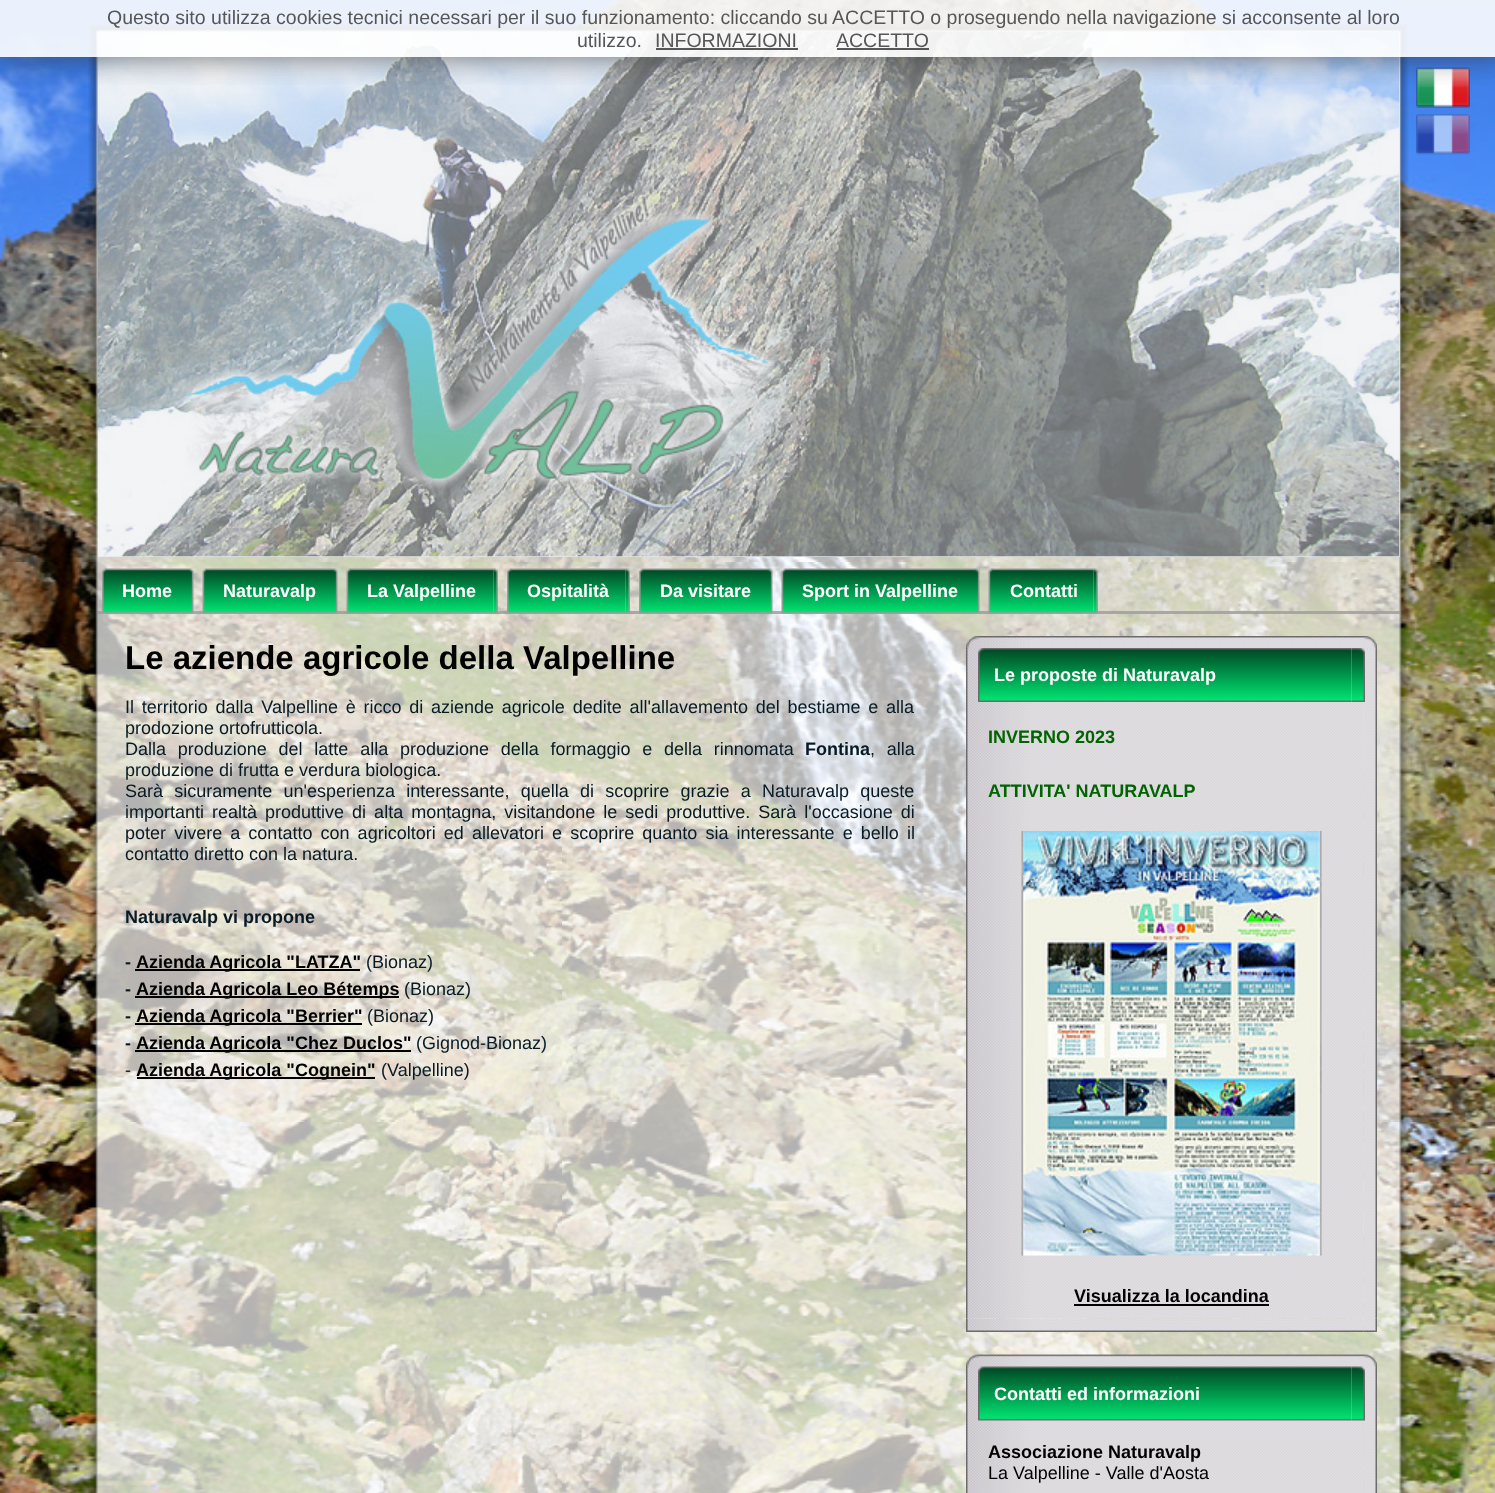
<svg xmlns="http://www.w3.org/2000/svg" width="1495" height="1493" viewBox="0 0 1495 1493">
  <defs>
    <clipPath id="clip1"><rect x="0" y="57" width="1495" height="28"/></clipPath>
  </defs>
  <rect width="100%" height="100%" fill="rgb(255,255,255)"/>
  <image x="0" y="0" width="1495" height="1493" href="pic1.png"/>
  <image x="89" y="23" width="1288" height="31" href="pic2.png"/>
  <image x="89" y="23" width="1288" height="31" href="pic3.png"/>
  <image x="1377" y="23" width="31" height="31" href="pic4.png"/>
  <image x="1377" y="23" width="31" height="31" href="pic5.png"/>
  <image x="1416" y="67" width="54" height="41" href="pic6.png"/>
  <image x="88" y="54" width="1289" height="1439" href="pic9.png"/>
  <image x="1377" y="54" width="32" height="1439" href="pic10.png"/>
  <rect x="98" y="32" width="1302" height="525" fill="rgb(229,233,236)"/>
  <image x="97" y="31" width="1303" height="526" href="pic8.png"/>
  <g clip-path="url(#clip1)">
    <rect x="0" y="0" width="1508" height="57" fill="rgba(50,50,50,0.68)" filter="blur(15px)"/>
  </g>
  <rect x="0" y="0" width="1495" height="57" fill="rgba(255,255,255,0.9)"/>
  <g font-family="Liberation Sans" font-size="19.5" fill="rgb(86,86,87)">
    <text x="107" y="24">Questo sito utilizza cookies tecnici necessari per il suo funzionamento: cliccando su ACCETTO o proseguendo nella navigazione si acconsente al loro</text>
    <text x="577" y="47">utilizzo.</text>
    <text x="655" y="47">INFORMAZIONI</text>
  </g>
  <rect x="656" y="48" width="142" height="2" fill="rgba(69,69,69,0.9)"/>
  <text x="836" y="47" font-family="Liberation Sans" font-size="19.5" fill="rgb(86,86,87)">ACCETTO</text>
  <rect x="837" y="48" width="92" height="2" fill="rgba(69,69,69,0.9)"/>
  <image x="1416" y="114" width="54" height="41" href="pic7.png"/>
  <rect x="98" y="611" width="1302" height="3" fill="rgba(155,155,155,0.81)"/>
  <image x="102" y="568" width="87" height="46" href="pic11.png"/>
  <image x="189" y="568" width="5" height="46" href="pic12.png"/>
  <text x="122" y="597" font-family="Liberation Sans" font-size="18" font-weight="bold" fill="rgb(255,255,255)">Home</text>
  <image x="202" y="568" width="131" height="46" href="pic13.png"/>
  <image x="333" y="568" width="5" height="46" href="pic14.png"/>
  <text x="223" y="597" font-family="Liberation Sans" font-size="18" font-weight="bold" fill="rgb(255,255,255)">Naturavalp</text>
  <image x="346" y="568" width="148" height="46" href="pic15.png"/>
  <image x="493" y="568" width="5" height="46" href="pic16.png"/>
  <text x="367" y="597" font-family="Liberation Sans" font-size="18" font-weight="bold" fill="rgb(255,255,255)">La Valpelline</text>
  <image x="507" y="568" width="119" height="46" href="pic17.png"/>
  <image x="625" y="568" width="5" height="46" href="pic18.png"/>
  <text x="527" y="597" font-family="Liberation Sans" font-size="18" font-weight="bold" fill="rgb(255,255,255)">Ospitalità</text>
  <image x="639" y="568" width="129" height="46" href="pic19.png"/>
  <image x="768" y="568" width="5" height="46" href="pic20.png"/>
  <text x="660" y="597" font-family="Liberation Sans" font-size="18" font-weight="bold" fill="rgb(255,255,255)">Da visitare</text>
  <image x="781" y="568" width="194" height="46" href="pic21.png"/>
  <image x="975" y="568" width="5" height="46" href="pic22.png"/>
  <text x="802" y="597" font-family="Liberation Sans" font-size="18" font-weight="bold" fill="rgb(255,255,255)">Sport in Valpelline</text>
  <image x="988" y="568" width="106" height="46" href="pic23.png"/>
  <image x="1093" y="568" width="5" height="46" href="pic24.png"/>
  <text x="1010" y="597" font-family="Liberation Sans" font-size="18" font-weight="bold" fill="rgb(255,255,255)">Contatti</text>
  <text x="125" y="669" font-family="Liberation Sans" font-size="33" font-weight="bold" fill="rgb(0,0,0)">Le aziende agricole della Valpelline</text>
  <g font-family="Liberation Sans" font-size="18" fill="rgb(7,27,38)">
    <text>
      <tspan x="125" y="713" word-spacing="2.75">Il territorio dalla Valpelline è ricco di aziende agricole dedite all'allavemento del bestiame e alla</tspan>
      <tspan x="125" y="734">prodozione ortofrutticola.</tspan>
      <tspan x="125" y="755" word-spacing="6.75">Dalla produzione del latte alla produzione della formaggio e della rinnomata</tspan>
    </text>
  </g>
  <text x="805" y="755" font-family="Liberation Sans" font-size="18" font-weight="bold" fill="rgb(7,27,38)">Fontina</text>
  <g font-family="Liberation Sans" font-size="18" fill="rgb(7,27,38)">
    <text x="870" y="755" word-spacing="6.75">, alla</text>
    <text>
      <tspan x="125" y="776">produzione di frutta e verdura biologica.</tspan>
      <tspan x="125" y="797" word-spacing="6.25">Sarà sicuramente un'esperienza interessante, quella di scoprire grazie a Naturavalp queste</tspan>
      <tspan x="125" y="818" word-spacing="3">importanti realtà produttive di alta montagna, visitandone le sedi produttive. Sarà l'occasione di</tspan>
      <tspan x="125" y="839" word-spacing="3.1">poter vivere a contatto con agricoltori ed allevatori e scoprire quanto sia interessante e bello il</tspan>
      <tspan x="125" y="860">contatto diretto con la natura.</tspan>
    </text>
  </g>
  <g font-family="Liberation Sans" font-size="18" font-weight="bold" fill="rgb(7,27,38)">
    <text x="125" y="923">Naturavalp vi propone</text>
    <text x="125" y="968">-</text>
  </g>
  <rect x="135" y="969" width="225" height="2" fill="rgb(0,0,0)"/>
  <text x="136" y="968" font-family="Liberation Sans" font-size="18" font-weight="bold" fill="rgb(0,0,0)">Azienda Agricola "LATZA"</text>
  <text x="366" y="968" font-family="Liberation Sans" font-size="18" fill="rgb(7,27,38)">(Bionaz)</text>
  <text x="125" y="995" font-family="Liberation Sans" font-size="18" font-weight="bold" fill="rgb(7,27,38)">-</text>
  <rect x="135" y="996" width="264" height="2" fill="rgb(0,0,0)"/>
  <text x="136" y="995" font-family="Liberation Sans" font-size="18" font-weight="bold" fill="rgb(0,0,0)">Azienda Agricola Leo Bétemps</text>
  <text x="404" y="995" font-family="Liberation Sans" font-size="18" fill="rgb(7,27,38)">(Bionaz)</text>
  <text x="125" y="1022" font-family="Liberation Sans" font-size="18" font-weight="bold" fill="rgb(7,27,38)">-</text>
  <rect x="135" y="1023" width="227" height="2" fill="rgb(0,0,0)"/>
  <text x="136" y="1022" font-family="Liberation Sans" font-size="18" font-weight="bold" fill="rgb(0,0,0)">Azienda Agricola "Berrier"</text>
  <text x="367" y="1022" font-family="Liberation Sans" font-size="18" fill="rgb(7,27,38)">(Bionaz)</text>
  <text x="125" y="1049" font-family="Liberation Sans" font-size="18" font-weight="bold" fill="rgb(7,27,38)">-</text>
  <rect x="135" y="1050" width="276" height="2" fill="rgb(0,0,0)"/>
  <text x="136" y="1049" font-family="Liberation Sans" font-size="18" font-weight="bold" fill="rgb(0,0,0)">Azienda Agricola "Chez Duclos"</text>
  <g font-family="Liberation Sans" font-size="18" fill="rgb(7,27,38)">
    <text x="416" y="1049">(Gignod-Bionaz)</text>
    <text x="125" y="1076">-</text>
  </g>
  <rect x="137" y="1077" width="238" height="2" fill="rgb(0,0,0)"/>
  <text x="136" y="1076" font-family="Liberation Sans" font-size="18" font-weight="bold" fill="rgb(0,0,0)">Azienda Agricola "Cognein"</text>
  <text x="381" y="1076" font-family="Liberation Sans" font-size="18" fill="rgb(7,27,38)">(Valpelline)</text>
  <image x="966" y="636" width="398" height="696" href="pic25.png"/>
  <image x="966" y="636" width="398" height="14" href="pic26.png"/>
  <image x="966" y="649" width="398" height="670" href="pic29.png"/>
  <image x="1363" y="649" width="14" height="670" href="pic30.png"/>
  <image x="1363" y="636" width="14" height="696" href="pic27.png"/>
  <image x="1363" y="636" width="14" height="14" href="pic28.png"/>
  <image x="978" y="648" width="374" height="54" href="pic31.png"/>
  <image x="1351" y="648" width="14" height="54" href="pic32.png"/>
  <text x="994" y="681" font-family="Liberation Sans" font-size="18" font-weight="bold" fill="rgb(255,255,255)">Le proposte di Naturavalp</text>
  <g font-family="Liberation Sans" font-size="18" font-weight="bold" fill="rgb(0,100,0)">
    <text x="988" y="743">INVERNO 2023</text>
    <text x="988" y="797">ATTIVITA' NATURAVALP</text>
  </g>
  <image x="1021" y="831" width="301" height="425" href="pic33.png"/>
  <text x="1074" y="1302" font-family="Liberation Sans" font-size="18" font-weight="bold" fill="rgb(0,0,0)">Visualizza la locandina</text>
  <rect x="1074" y="1304" width="195" height="2" fill="rgb(0,0,0)"/>
  <image x="966" y="1354" width="398" height="14" href="pic34.png"/>
  <image x="966" y="1354" width="398" height="14" href="pic35.png"/>
  <image x="1363" y="1354" width="14" height="14" href="pic36.png"/>
  <image x="1363" y="1354" width="14" height="13" href="pic37.png"/>
  <image x="966" y="1368" width="398" height="125" href="pic38.png"/>
  <image x="1363" y="1368" width="14" height="125" href="pic39.png"/>
  <image x="978" y="1366" width="374" height="55" href="pic40.png"/>
  <image x="1351" y="1366" width="14" height="55" href="pic41.png"/>
  <text x="994" y="1400" font-family="Liberation Sans" font-size="18" font-weight="bold" fill="rgb(255,255,255)">Contatti ed informazioni</text>
  <text x="988" y="1458" font-family="Liberation Sans" font-size="18" font-weight="bold" fill="rgb(0,0,0)">Associazione Naturavalp</text>
  <text x="988" y="1479" font-family="Liberation Sans" font-size="18" fill="rgb(0,0,0)">La Valpelline - Valle d'Aosta</text>
</svg>
